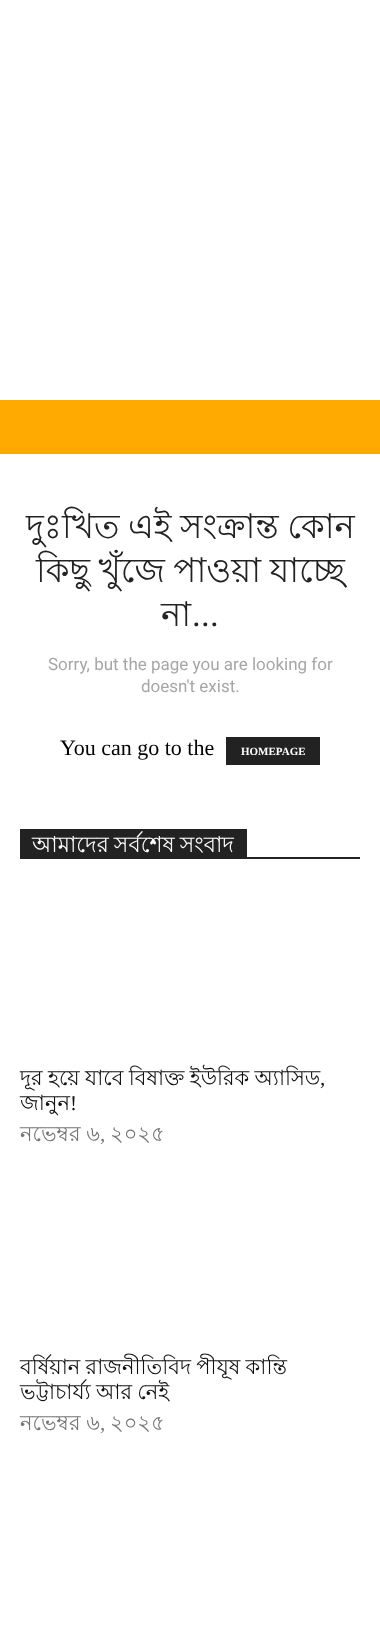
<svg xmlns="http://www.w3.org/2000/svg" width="380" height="1641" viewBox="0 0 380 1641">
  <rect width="100%" height="100%" fill="rgb(255,255,255)"/>
  <rect x="0" y="400" width="380" height="54" fill="rgb(255,170,0)"/>
  <g font-family="Lohit Bengali" font-size="34" fill="rgb(34,34,34)">
    <text x="26" y="538" word-spacing="-1">দুঃখিত এই সংক্রান্ত কোন</text>
    <text x="36" y="582" word-spacing="-1">কিছু খুঁজে পাওয়া যাচ্ছে</text>
    <text x="161" y="626">না</text>
  </g>
  <text x="192" y="626" font-family="Roboto" font-size="34" fill="rgb(34,34,34)">...</text>
  <g font-family="Roboto" font-size="17" fill="rgb(166,166,166)">
    <text x="48" y="670">Sorry, but the page you are looking for</text>
    <text x="141" y="692">doesn't exist.</text>
  </g>
  <text x="60" y="755" font-family="Liberation Serif" font-size="22" fill="rgb(0,0,0)">You can go to the</text>
  <rect x="226" y="737" width="94" height="28" fill="rgb(34,34,34)"/>
  <text x="241" y="755" font-family="Liberation Serif" font-size="11" font-weight="bold" fill="rgb(255,255,255)">HOMEPAGE</text>
  <rect x="20" y="857" width="340" height="2" fill="rgb(34,34,34)"/>
  <rect x="20" y="829" width="227" height="28" fill="rgb(34,34,34)"/>
  <text x="32" y="852" word-spacing="-1" font-family="Lohit Bengali" font-size="22" fill="rgb(255,255,255)">আমাদের সর্বশেষ সংবাদ</text>
  <text x="20" y="1085" word-spacing="-0.5" font-family="Lohit Bengali" font-size="21" fill="rgb(17,17,17)">দূর হয়ে যাবে বিষাক্ত ইউরিক অ্যাসিড</text>
  <text x="320" y="1085" font-family="Liberation Serif" font-size="21" fill="rgb(17,17,17)">,</text>
  <text x="20" y="1110" font-family="Lohit Bengali" font-size="21" fill="rgb(17,17,17)">জানুন</text>
  <text x="70" y="1110" font-family="Liberation Serif" font-size="21" fill="rgb(17,17,17)">!</text>
  <text x="20" y="1141" font-family="Lohit Bengali" font-size="21" fill="rgb(118,118,118)">নভেম্বর ৬</text>
  <text x="100" y="1141" font-family="Liberation Serif" font-size="21" fill="rgb(118,118,118)">,</text>
  <text x="110" y="1141" font-family="Lohit Bengali" font-size="21" fill="rgb(118,118,118)">২০২৫</text>
  <g font-family="Lohit Bengali" font-size="21" fill="rgb(17,17,17)">
    <text>
      <tspan x="20" y="1374" word-spacing="-0.5">বর্ষিয়ান রাজনীতিবিদ পীযূষ কান্তি</tspan>
      <tspan x="20" y="1399" word-spacing="-0.5">ভট্টাচার্য্য আর নেই</tspan>
    </text>
  </g>
  <text x="20" y="1430" font-family="Lohit Bengali" font-size="21" fill="rgb(118,118,118)">নভেম্বর ৬</text>
  <text x="100" y="1430" font-family="Liberation Serif" font-size="21" fill="rgb(118,118,118)">,</text>
  <text x="110" y="1430" font-family="Lohit Bengali" font-size="21" fill="rgb(118,118,118)">২০২৫</text>
</svg>
